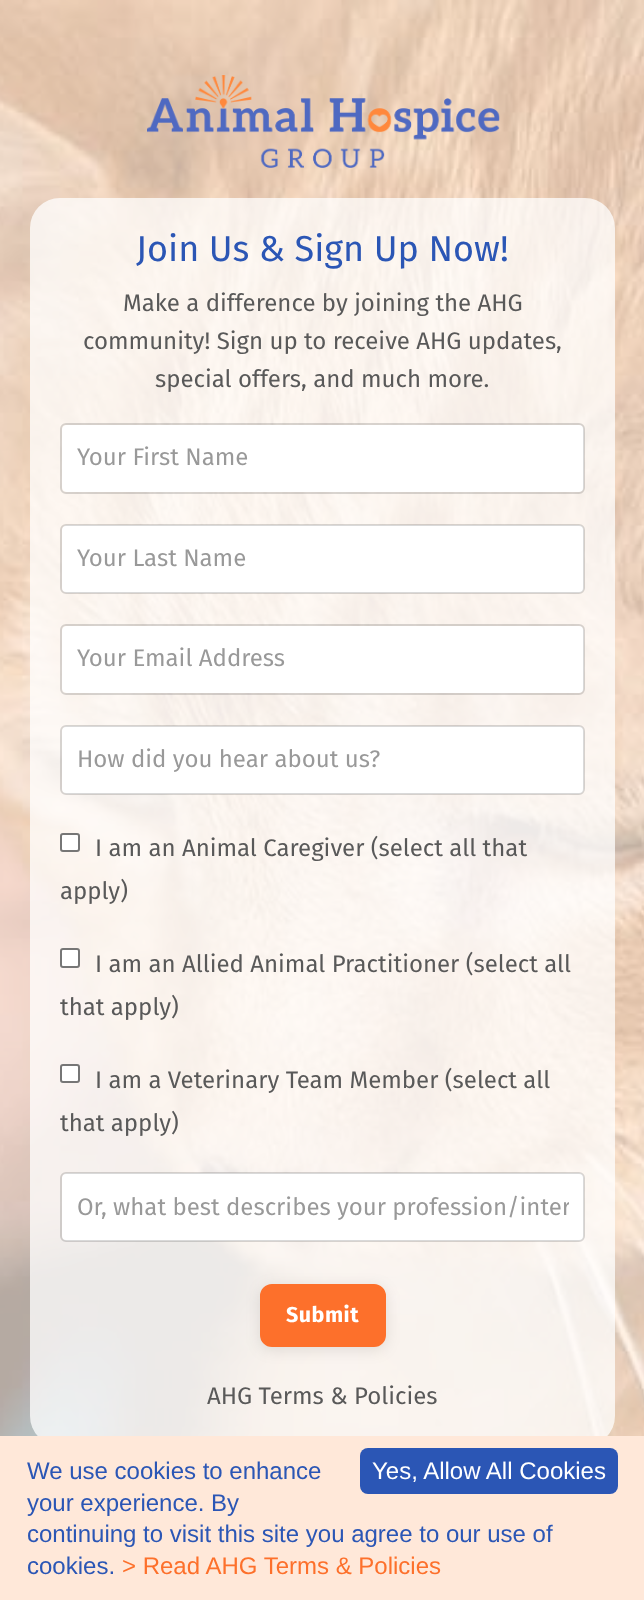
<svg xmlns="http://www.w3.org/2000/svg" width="644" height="1600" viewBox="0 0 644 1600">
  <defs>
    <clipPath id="clip1"><rect x="77" y="1193" width="492" height="28"/></clipPath>
  </defs>
  <rect width="100%" height="100%" fill="rgb(255,255,255)"/>
  <image x="0" y="0" width="644" height="1436" href="pic1.png"/>
  <image x="147" y="75" width="353" height="93" href="pic2.png"/>
  <rect x="30" y="198" width="585" height="1248" rx="30" fill="rgba(255,255,255,0.75)"/>
  <text x="136" y="261" font-family="Fira Sans" font-size="36" fill="rgb(43,86,181)">Join Us &amp; Sign Up Now!</text>
  <g font-family="Fira Sans" font-size="24" fill="rgb(89,89,89)">
    <text x="123" y="311">Make a difference by joining the AHG</text>
    <text x="83" y="349">community! Sign up to receive AHG updates,</text>
    <text x="155" y="387">special offers, and much more.</text>
  </g>
  <rect x="62" y="425" width="522" height="67" rx="5" fill="rgb(255,255,255)"/>
  <rect x="61" y="424" width="523" height="69" rx="5" fill="none" stroke="rgba(0,0,0,0.15)" stroke-width="2"/>
  <text x="77" y="465" font-family="Fira Sans" font-size="24" fill="rgb(153,153,153)">Your First Name</text>
  <rect x="62" y="525" width="522" height="68" rx="5" fill="rgb(255,255,255)"/>
  <rect x="61" y="525" width="523" height="68" rx="5" fill="none" stroke="rgba(0,0,0,0.15)" stroke-width="2"/>
  <text x="77" y="566" font-family="Fira Sans" font-size="24" fill="rgb(153,153,153)">Your Last Name</text>
  <rect x="62" y="626" width="522" height="67" rx="5" fill="rgb(255,255,255)"/>
  <rect x="61" y="625" width="523" height="69" rx="5" fill="none" stroke="rgba(0,0,0,0.15)" stroke-width="2"/>
  <text x="77" y="666" font-family="Fira Sans" font-size="24" fill="rgb(153,153,153)">Your Email Address</text>
  <rect x="62" y="726" width="522" height="68" rx="5" fill="rgb(255,255,255)"/>
  <rect x="61" y="726" width="523" height="68" rx="5" fill="none" stroke="rgba(0,0,0,0.15)" stroke-width="2"/>
  <text x="77" y="767" font-family="Fira Sans" font-size="24" fill="rgb(153,153,153)">How did you hear about us?</text>
  <rect x="61" y="834" width="18" height="17" rx="2" fill="rgb(255,255,255)" stroke="rgb(118,118,118)" stroke-width="2"/>
  <g font-family="Fira Sans" font-size="24" fill="rgb(89,89,89)">
    <text x="95" y="856">I am an Animal Caregiver (select all that</text>
    <text x="60" y="899">apply)</text>
  </g>
  <rect x="61" y="949" width="18" height="18" rx="2" fill="rgb(255,255,255)" stroke="rgb(118,118,118)" stroke-width="2"/>
  <g font-family="Fira Sans" font-size="24" fill="rgb(89,89,89)">
    <text x="95" y="972">I am an Allied Animal Practitioner (select all</text>
    <text x="60" y="1015">that apply)</text>
  </g>
  <rect x="61" y="1065" width="18" height="17" rx="2" fill="rgb(255,255,255)" stroke="rgb(118,118,118)" stroke-width="2"/>
  <g font-family="Fira Sans" font-size="24" fill="rgb(89,89,89)">
    <text x="95" y="1088">I am a Veterinary Team Member (select all</text>
    <text x="60" y="1131">that apply)</text>
  </g>
  <rect x="62" y="1173" width="522" height="68" rx="5" fill="rgb(255,255,255)"/>
  <rect x="61" y="1173" width="523" height="68" rx="5" fill="none" stroke="rgba(0,0,0,0.15)" stroke-width="2"/>
  <g clip-path="url(#clip1)">
    <text x="77" y="1215" font-family="Fira Sans" font-size="24" fill="rgb(153,153,153)">Or, what best describes your profession/inter</text>
  </g>
  <rect x="260" y="1287" width="126" height="63" rx="12" fill="rgba(0,0,0,0.1)" filter="blur(7.5px)"/>
  <rect x="261.5" y="1285.5" width="123" height="60" rx="10.5" fill="rgb(253,112,43)" stroke="rgb(253,112,43)" stroke-width="3"/>
  <text x="286" y="1322" font-family="Fira Sans" font-size="21.5" font-weight="bold" letter-spacing="0.5" fill="rgb(255,255,255)">Submit</text>
  <text x="207" y="1404" font-family="Fira Sans" font-size="24" fill="rgb(89,89,89)">AHG Terms &amp; Policies</text>
  <rect x="0" y="1436" width="644" height="164" fill="rgb(255,232,217)"/>
  <g font-family="Liberation Sans" font-size="24" fill="rgb(43,86,181)">
    <text>
      <tspan x="27" y="1479">We use cookies to enhance</tspan>
      <tspan x="27" y="1511">your experience. By</tspan>
      <tspan x="27" y="1542">continuing to visit this site you agree to our use of</tspan>
      <tspan x="27" y="1574">cookies.</tspan>
    </text>
  </g>
  <text x="122" y="1574" font-family="Liberation Sans" font-size="24" fill="rgb(253,112,43)">&gt; Read AHG Terms &amp; Policies</text>
  <rect x="360" y="1448" width="258" height="46" rx="8" fill="rgb(43,86,181)"/>
  <text x="372" y="1479" font-family="Liberation Sans" font-size="24" fill="rgb(255,255,255)">Yes, Allow All Cookies</text>
</svg>
